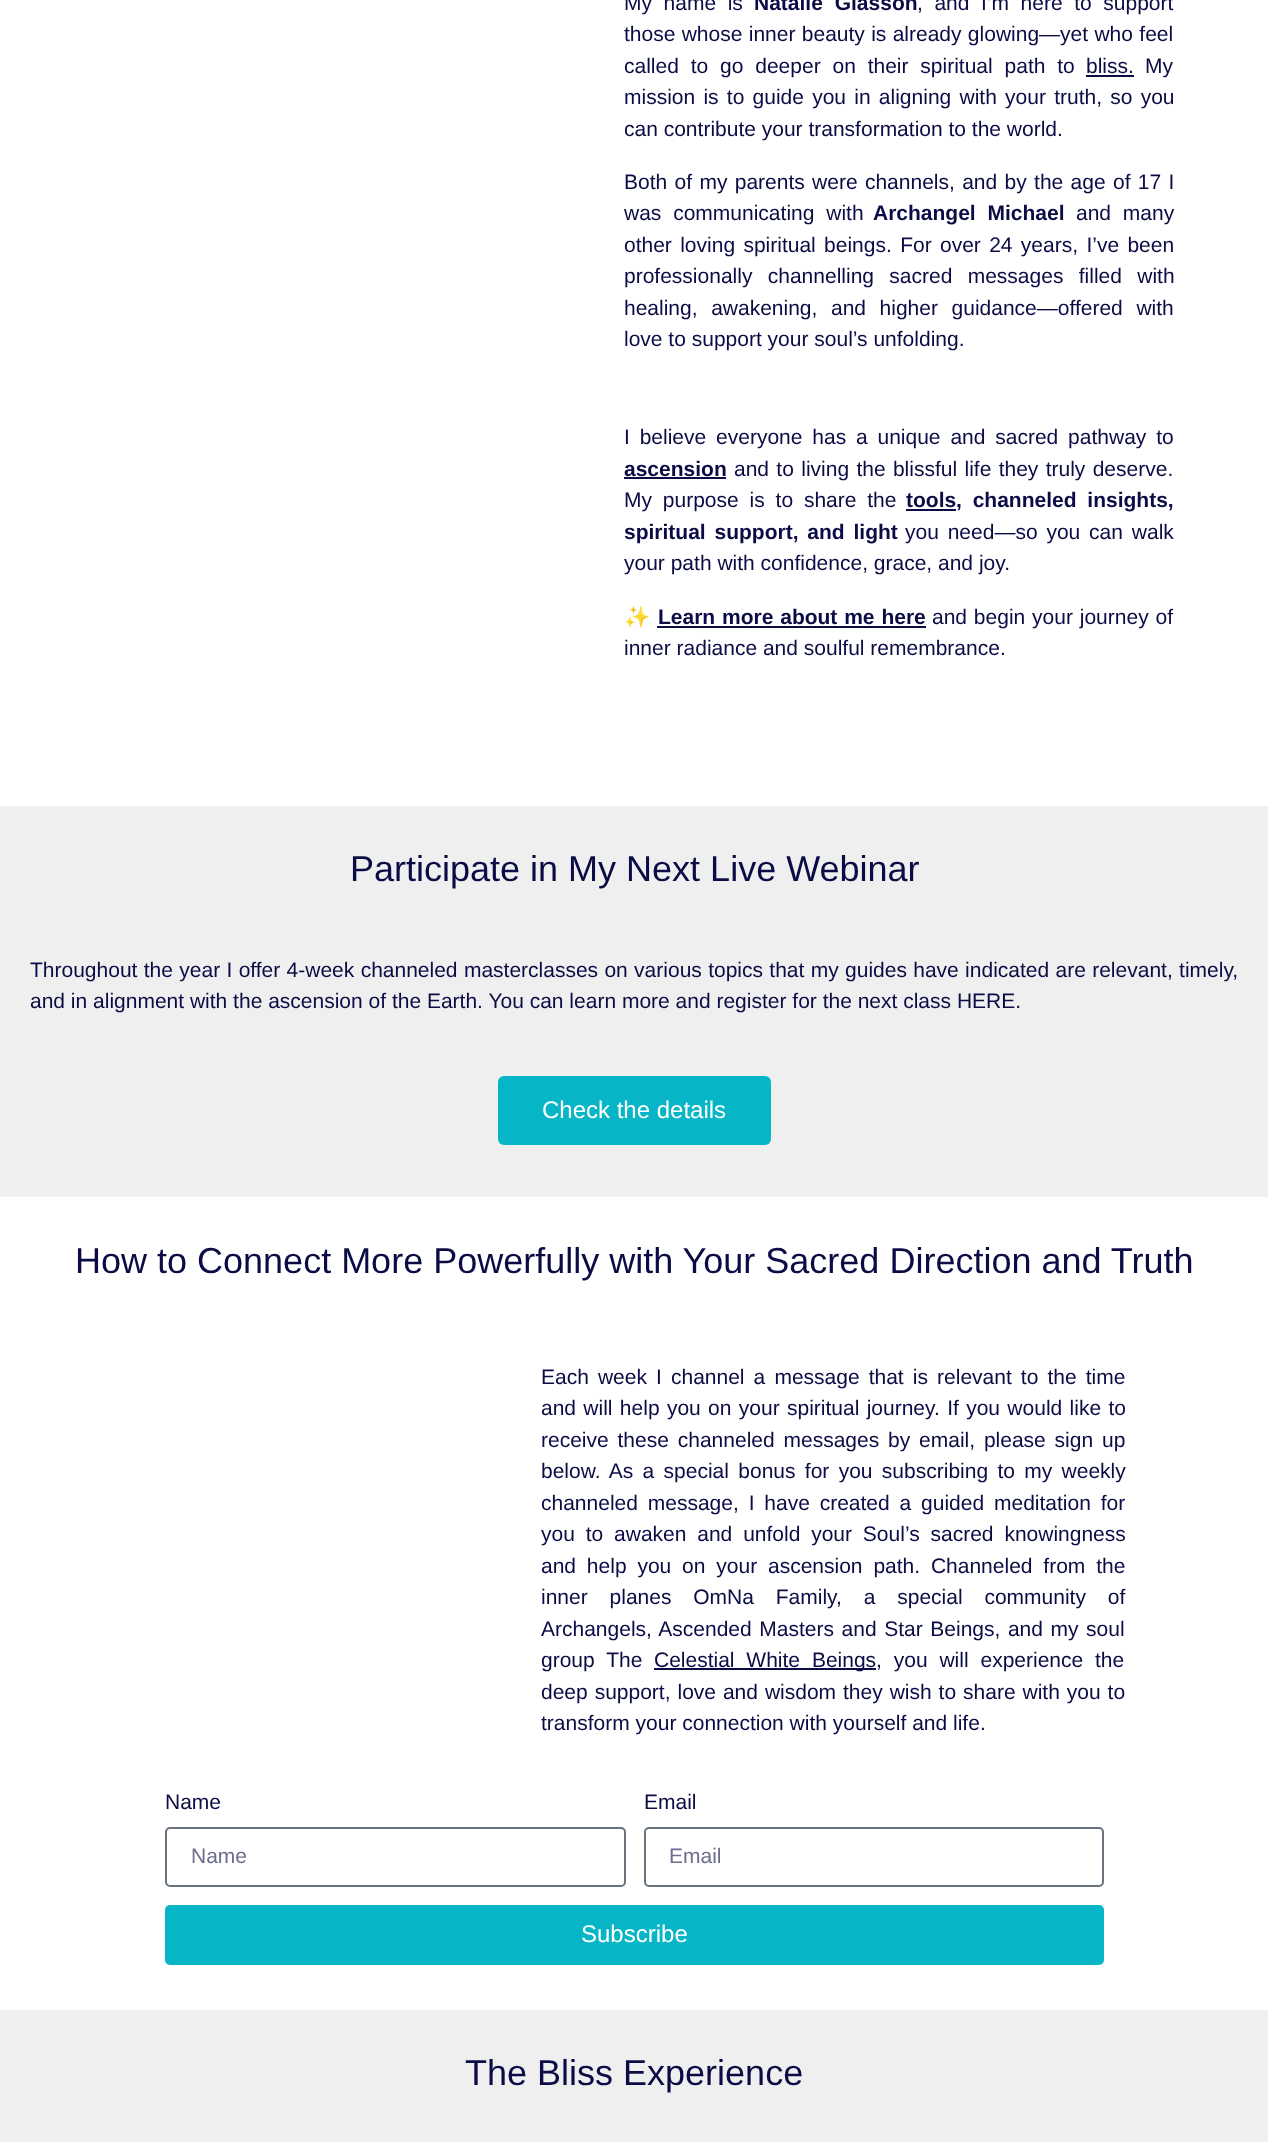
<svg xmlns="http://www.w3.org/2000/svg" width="1268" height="2142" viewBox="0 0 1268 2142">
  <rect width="100%" height="100%" fill="rgb(255,255,255)"/>
  <text x="624" y="10" word-spacing="5.75" font-family="Liberation Sans" font-size="21" fill="rgb(11,11,69)">My name is</text>
  <text x="754" y="10" word-spacing="6" font-family="Liberation Sans" font-size="21" font-weight="bold" fill="rgb(11,11,69)">Natalie Glasson</text>
  <g font-family="Liberation Sans" font-size="21" fill="rgb(11,11,69)">
    <text x="917" y="10" word-spacing="5.75">, and I’m here to support</text>
    <text>
      <tspan x="624" y="41" word-spacing="0.5">those whose inner beauty is already glowing—yet who feel</tspan>
      <tspan x="624" y="73" word-spacing="6">called to go deeper on their spiritual path to</tspan>
    </text>
    <text x="1086" y="73">bliss.</text>
  </g>
  <rect x="1086" y="75" width="48" height="2" fill="rgb(11,11,69)"/>
  <g font-family="Liberation Sans" font-size="21" fill="rgb(11,11,69)">
    <text x="1145" y="73">My</text>
    <text>
      <tspan x="624" y="104" word-spacing="2.4">mission is to guide you in aligning with your truth, so you</tspan>
      <tspan x="624" y="136">can contribute your transformation to the world.</tspan>
    </text>
    <text>
      <tspan x="624" y="189" word-spacing="1.5">Both of my parents were channels, and by the age of 17 I</tspan>
      <tspan x="624" y="220" word-spacing="6">was communicating with</tspan>
    </text>
  </g>
  <text x="873" y="220" word-spacing="6" font-family="Liberation Sans" font-size="21" font-weight="bold" fill="rgb(11,11,69)">Archangel Michael</text>
  <g font-family="Liberation Sans" font-size="21" fill="rgb(11,11,69)">
    <text x="1076" y="220" word-spacing="6">and many</text>
    <text>
      <tspan x="624" y="252" word-spacing="2.5">other loving spiritual beings. For over 24 years, I’ve been</tspan>
      <tspan x="624" y="283" word-spacing="9.5">professionally channelling sacred messages filled with</tspan>
      <tspan x="624" y="315" word-spacing="7.75">healing, awakening, and higher guidance—offered with</tspan>
      <tspan x="624" y="346">love to support your soul’s unfolding.</tspan>
    </text>
    <text x="624" y="444" word-spacing="4">I believe everyone has a unique and sacred pathway to</text>
  </g>
  <text x="624" y="476" font-family="Liberation Sans" font-size="21" font-weight="bold" fill="rgb(11,11,69)">ascension</text>
  <rect x="624" y="477" width="102" height="2" fill="rgb(11,11,69)"/>
  <g font-family="Liberation Sans" font-size="21" fill="rgb(11,11,69)">
    <text x="734" y="476" word-spacing="1.5">and to living the blissful life they truly deserve.</text>
    <text x="624" y="507" word-spacing="5">My purpose is to share the</text>
  </g>
  <g font-family="Liberation Sans" font-size="21" font-weight="bold" fill="rgb(11,11,69)">
    <text x="906" y="507">tools</text>
    <text x="956" y="507" word-spacing="5">, channeled insights,</text>
  </g>
  <rect x="906" y="509" width="50" height="2" fill="rgb(11,11,69)"/>
  <text x="624" y="539" word-spacing="3" font-family="Liberation Sans" font-size="21" font-weight="bold" fill="rgb(11,11,69)">spiritual support, and light</text>
  <g font-family="Liberation Sans" font-size="21" fill="rgb(11,11,69)">
    <text x="905" y="539" word-spacing="3">you need—so you can walk</text>
    <text x="624" y="570">your path with confidence, grace, and joy.</text>
  </g>
  <text x="624" y="624" font-family="Noto Color Emoji" font-size="21" fill="rgb(11,11,69)">✨</text>
  <text x="658" y="624" word-spacing="1" font-family="Liberation Sans" font-size="21" font-weight="bold" fill="rgb(11,11,69)">Learn more about me here</text>
  <rect x="657" y="626" width="269" height="2" fill="rgb(11,11,69)"/>
  <g font-family="Liberation Sans" font-size="21" fill="rgb(11,11,69)">
    <text x="932" y="624" word-spacing="1">and begin your journey of</text>
    <text x="624" y="655">inner radiance and soulful remembrance.</text>
  </g>
  <rect x="0" y="806" width="1268" height="391" fill="rgb(239,239,239)"/>
  <text x="350" y="881" font-family="Liberation Sans" font-size="36" fill="rgb(11,11,69)">Participate in My Next Live Webinar</text>
  <g font-family="Liberation Sans" font-size="21" fill="rgb(11,11,69)">
    <text>
      <tspan x="30" y="977" word-spacing="0.5">Throughout the year I offer 4-week channeled masterclasses on various topics that my guides have indicated are relevant, timely,</tspan>
      <tspan x="30" y="1008">and in alignment with the ascension of the Earth. You can learn more and register for the next class HERE.</tspan>
    </text>
  </g>
  <rect x="498" y="1076" width="273" height="69" rx="6" fill="rgb(7,182,198)"/>
  <text x="542" y="1118" font-family="Liberation Sans" font-size="24" fill="rgb(255,255,255)">Check the details</text>
  <text x="75" y="1273" font-family="Liberation Sans" font-size="36" fill="rgb(11,11,69)">How to Connect More Powerfully with Your Sacred Direction and Truth</text>
  <g font-family="Liberation Sans" font-size="21" fill="rgb(11,11,69)">
    <text>
      <tspan x="541" y="1384" word-spacing="3.25">Each week I channel a message that is relevant to the time</tspan>
      <tspan x="541" y="1415" word-spacing="1.5">and will help you on your spiritual journey. If you would like to</tspan>
      <tspan x="541" y="1447" word-spacing="3">receive these channeled messages by email, please sign up</tspan>
      <tspan x="541" y="1478" word-spacing="3.5">below. As a special bonus for you subscribing to my weekly</tspan>
      <tspan x="541" y="1510" word-spacing="4">channeled message, I have created a guided meditation for</tspan>
      <tspan x="541" y="1541" word-spacing="5">you to awaken and unfold your Soul’s sacred knowingness</tspan>
      <tspan x="541" y="1573" word-spacing="5">and help you on your ascension path. Channeled from the</tspan>
      <tspan x="541" y="1604" word-spacing="16">inner planes OmNa Family, a special community of</tspan>
      <tspan x="541" y="1636" word-spacing="1.75">Archangels, Ascended Masters and Star Beings, and my soul</tspan>
      <tspan x="541" y="1667" word-spacing="6">group The</tspan>
    </text>
  </g>
  <rect x="654" y="1668" width="222" height="2" fill="rgb(11,11,69)"/>
  <g font-family="Liberation Sans" font-size="21" fill="rgb(11,11,69)">
    <text x="654" y="1667" word-spacing="6">Celestial White Beings, you will experience the</text>
    <text>
      <tspan x="541" y="1699" word-spacing="1.1">deep support, love and wisdom they wish to share with you to</tspan>
      <tspan x="541" y="1730">transform your connection with yourself and life.</tspan>
    </text>
    <text x="165" y="1809">Name</text>
  </g>
  <rect x="166" y="1828" width="459" height="58" rx="4" fill="none" stroke="rgb(105,114,125)" stroke-width="2"/>
  <text x="191" y="1863" font-family="Liberation Sans" font-size="21" fill="rgb(109,109,143)">Name</text>
  <text x="644" y="1809" font-family="Liberation Sans" font-size="21" fill="rgb(11,11,69)">Email</text>
  <rect x="645" y="1828" width="458" height="58" rx="4" fill="none" stroke="rgb(105,114,125)" stroke-width="2"/>
  <text x="669" y="1863" font-family="Liberation Sans" font-size="21" fill="rgb(109,109,143)">Email</text>
  <rect x="165" y="1905" width="939" height="60" rx="5" fill="rgb(7,182,198)"/>
  <text x="581" y="1942" font-family="Liberation Sans" font-size="24" fill="rgb(255,255,255)">Subscribe</text>
  <rect x="0" y="2010" width="1268" height="132" fill="rgb(239,239,239)"/>
  <text x="465" y="2085" font-family="Liberation Sans" font-size="36" fill="rgb(11,11,69)">The Bliss Experience</text>
</svg>
